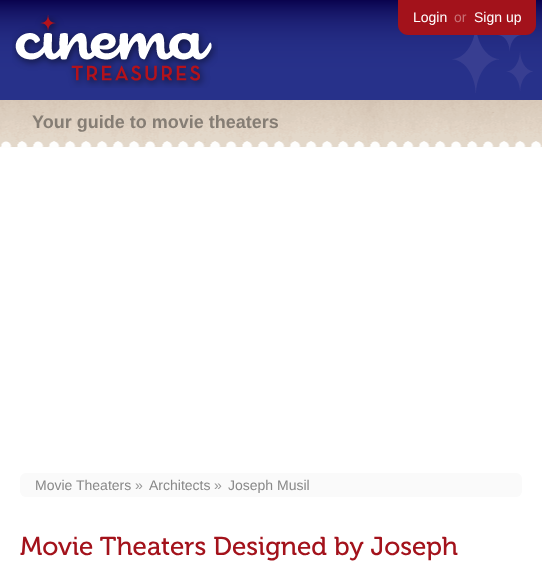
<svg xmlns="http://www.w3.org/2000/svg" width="542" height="566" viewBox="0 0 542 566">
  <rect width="100%" height="100%" fill="rgb(255,255,255)"/>
  <image x="0" y="0" width="542" height="100" href="pic1.png"/>
  <image x="12" y="15" width="206" height="73" href="pic2.png"/>
  <path d="M398 0H536V25C536 30.5 531.5 35 526 35H408C402.5 35 398 30.5 398 25Z" fill="rgb(163,18,27)"/>
  <text x="413" y="22" font-family="Liberation Sans" font-size="14" fill="rgb(255,255,255)">Login</text>
  <text x="454" y="22" font-family="Liberation Sans" font-size="14" fill="rgb(200,113,118)">or</text>
  <text x="474" y="22" font-family="Liberation Sans" font-size="14" fill="rgb(255,255,255)">Sign up</text>
  <image x="452" y="35" width="81" height="58" href="pic3.png"/>
  <image x="0" y="100" width="542" height="48" href="pic4.png"/>
  <text x="32" y="128" font-family="Liberation Sans" font-size="18" font-weight="bold" fill="rgb(133,125,116)">Your guide to movie theaters</text>
  <rect x="20" y="473" width="502" height="24" rx="6" fill="rgb(250,250,250)"/>
  <text x="35" y="490" font-family="Liberation Sans" font-size="14" fill="rgb(136,136,136)">Movie Theaters</text>
  <text x="135" y="490" font-family="Liberation Sans" font-size="14" fill="rgb(153,153,153)">»</text>
  <text x="149" y="490" font-family="Liberation Sans" font-size="14" fill="rgb(136,136,136)">Architects</text>
  <text x="214" y="490" font-family="Liberation Sans" font-size="14" fill="rgb(153,153,153)">»</text>
  <text x="228" y="490" font-family="Liberation Sans" font-size="14" fill="rgb(136,136,136)">Joseph Musil</text>
  <text x="20" y="555" font-family="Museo" font-size="26" fill="rgb(163,18,27)">Movie Theaters Designed by Joseph</text>
</svg>
